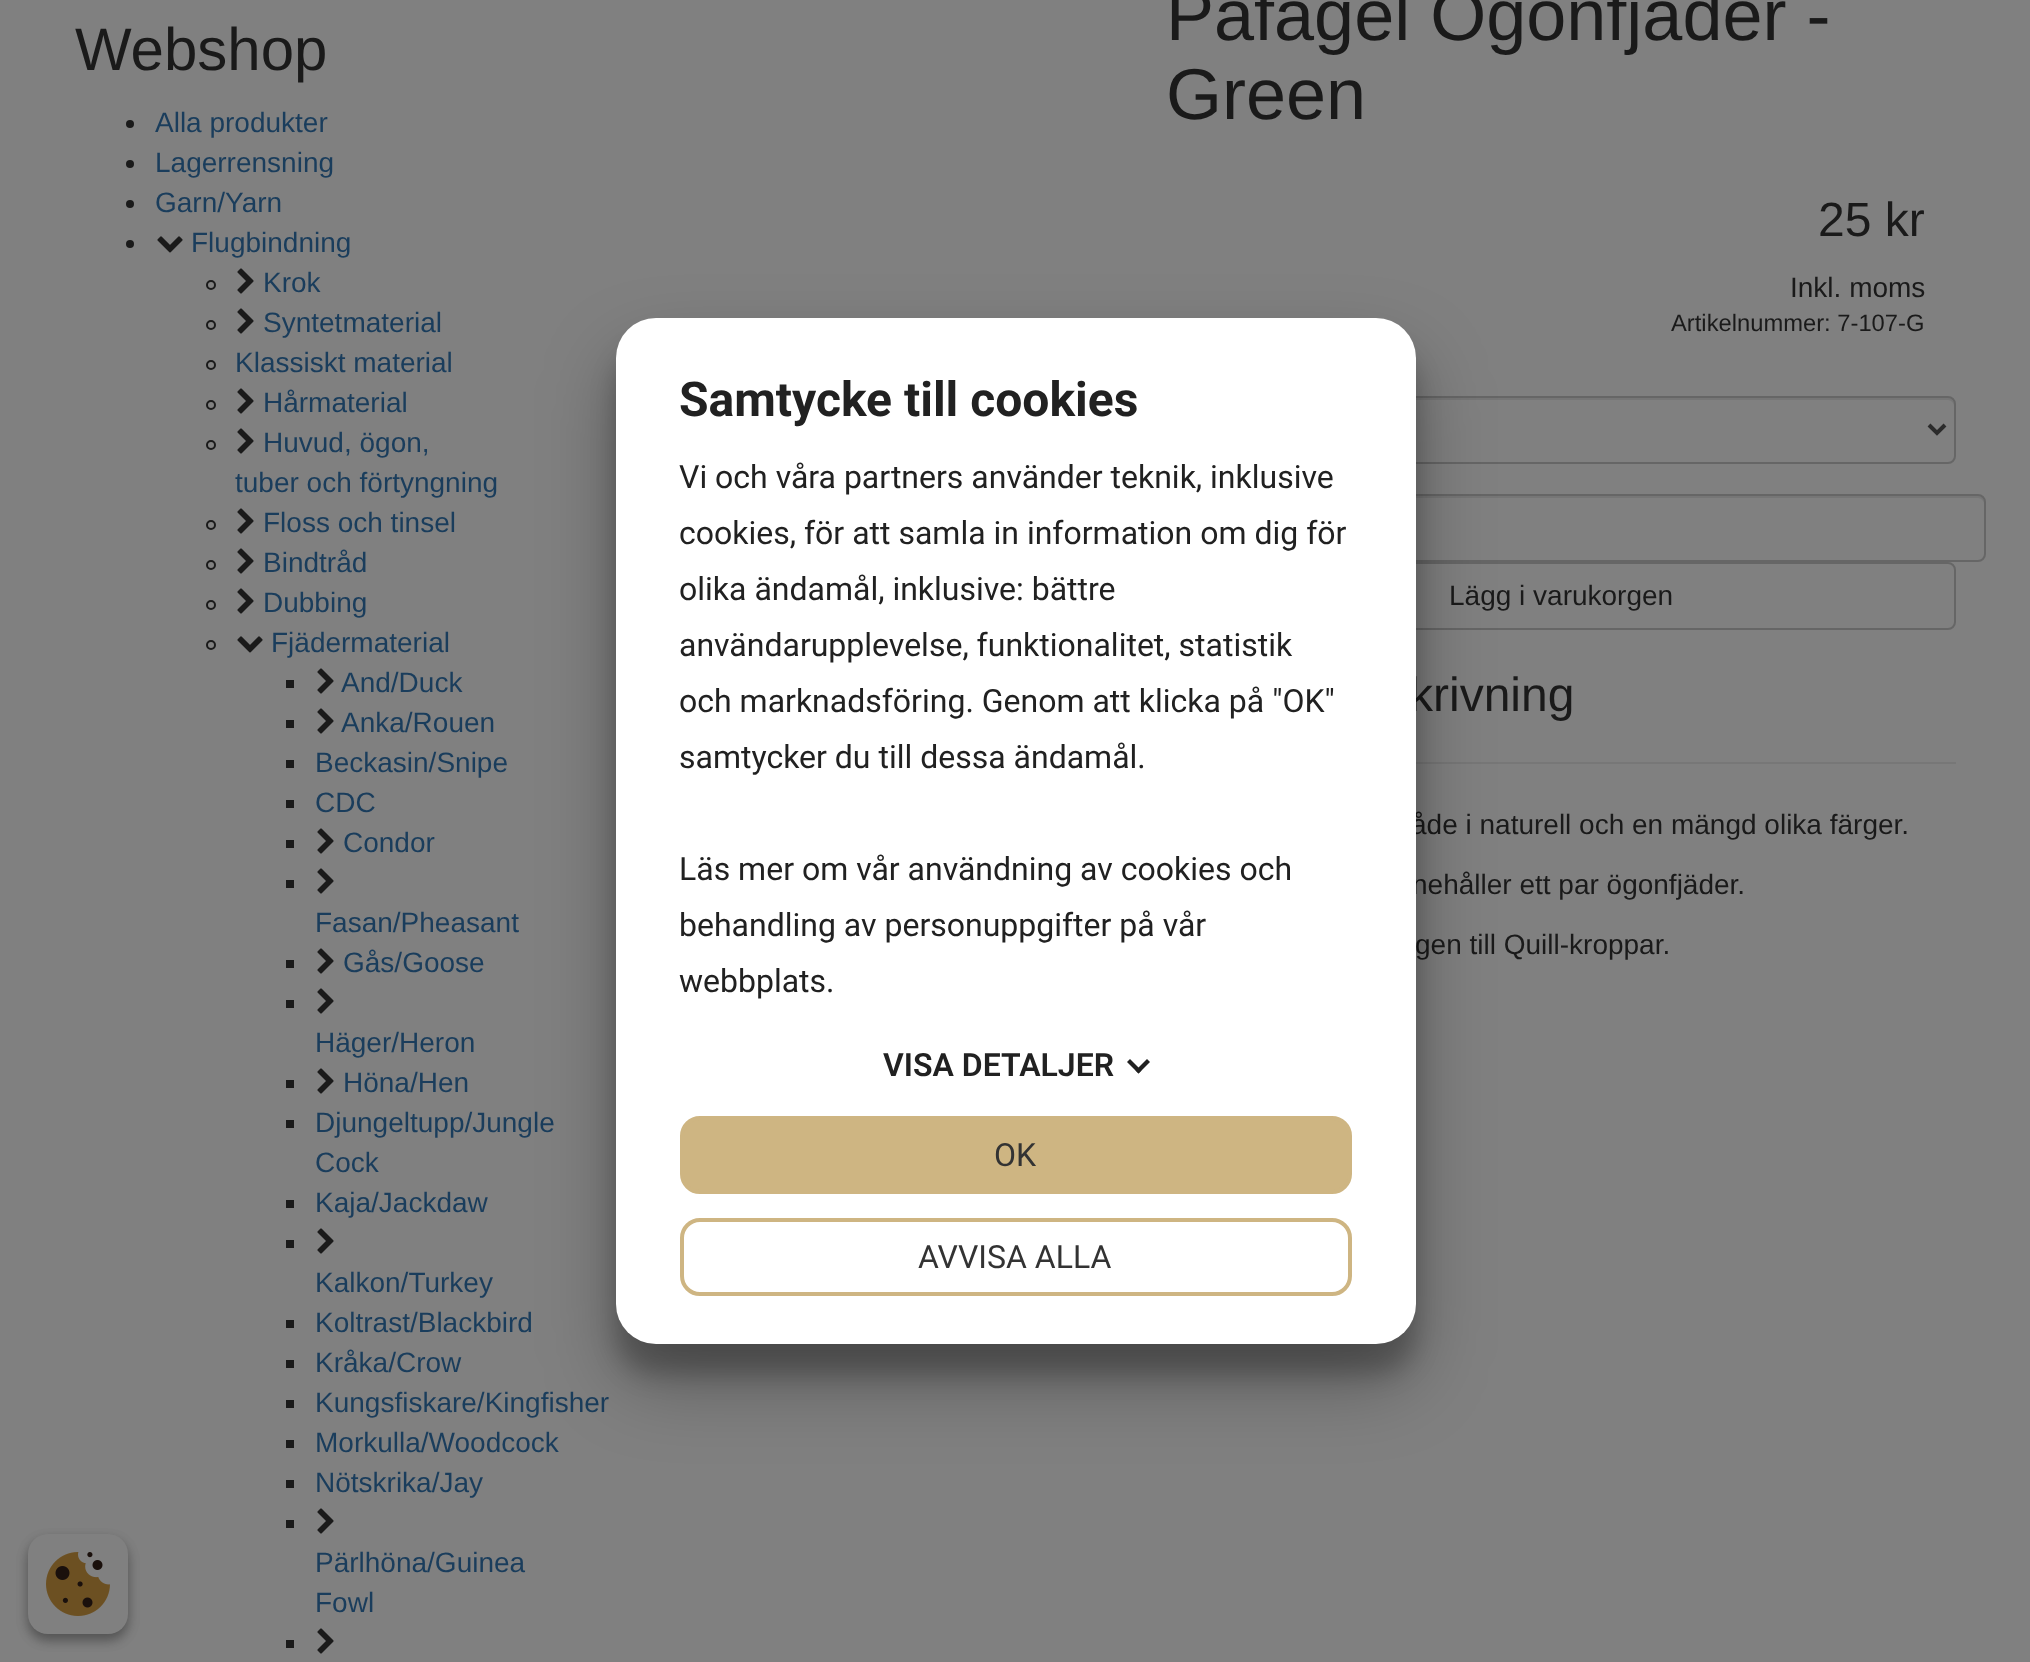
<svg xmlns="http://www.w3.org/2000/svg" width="2030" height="1662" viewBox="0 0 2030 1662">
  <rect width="100%" height="100%" fill="rgb(128,128,128)"/>
  <text x="75" y="70" font-family="Liberation Sans" font-size="60" fill="rgb(26,26,26)">Webshop</text>
  <circle cx="130" cy="124" r="4" fill="rgb(26,26,26)"/>
  <text x="155" y="132" font-family="Liberation Sans" font-size="28" fill="rgb(26,61,92)">Alla produkter</text>
  <circle cx="130" cy="164" r="4" fill="rgb(26,26,26)"/>
  <text x="155" y="172" font-family="Liberation Sans" font-size="28" fill="rgb(26,61,92)">Lagerrensning</text>
  <circle cx="130" cy="204" r="4" fill="rgb(26,26,26)"/>
  <text x="155" y="212" font-family="Liberation Sans" font-size="28" fill="rgb(26,61,92)">Garn/Yarn</text>
  <circle cx="130" cy="244" r="4" fill="rgb(26,26,26)"/>
  <image x="157" y="236" width="26" height="17" href="pic1.png"/>
  <text x="191" y="252" font-family="Liberation Sans" font-size="28" fill="rgb(26,61,92)">Flugbindning</text>
  <circle cx="211" cy="285" r="4" fill="none" stroke="rgb(26,26,26)" stroke-width="2"/>
  <image x="237" y="268" width="17" height="26" href="pic2.png"/>
  <text x="263" y="292" font-family="Liberation Sans" font-size="28" fill="rgb(26,61,92)">Krok</text>
  <circle cx="211" cy="325" r="4" fill="none" stroke="rgb(26,26,26)" stroke-width="2"/>
  <image x="237" y="308" width="17" height="26" href="pic2.png"/>
  <text x="263" y="332" font-family="Liberation Sans" font-size="28" fill="rgb(26,61,92)">Syntetmaterial</text>
  <circle cx="211" cy="365" r="4" fill="none" stroke="rgb(26,26,26)" stroke-width="2"/>
  <text x="235" y="372" font-family="Liberation Sans" font-size="28" fill="rgb(26,61,92)">Klassiskt material</text>
  <circle cx="211" cy="405" r="4" fill="none" stroke="rgb(26,26,26)" stroke-width="2"/>
  <image x="237" y="388" width="17" height="26" href="pic2.png"/>
  <text x="263" y="412" font-family="Liberation Sans" font-size="28" fill="rgb(26,61,92)">Hårmaterial</text>
  <circle cx="211" cy="445" r="4" fill="none" stroke="rgb(26,26,26)" stroke-width="2"/>
  <image x="237" y="428" width="17" height="26" href="pic2.png"/>
  <g font-family="Liberation Sans" font-size="28" fill="rgb(26,61,92)">
    <text x="263" y="452">Huvud, ögon,</text>
    <text x="235" y="492">tuber och förtyngning</text>
  </g>
  <circle cx="211" cy="525" r="4" fill="none" stroke="rgb(26,26,26)" stroke-width="2"/>
  <image x="237" y="508" width="17" height="26" href="pic2.png"/>
  <text x="263" y="532" font-family="Liberation Sans" font-size="28" fill="rgb(26,61,92)">Floss och tinsel</text>
  <circle cx="211" cy="565" r="4" fill="none" stroke="rgb(26,26,26)" stroke-width="2"/>
  <image x="237" y="548" width="17" height="26" href="pic2.png"/>
  <text x="263" y="572" font-family="Liberation Sans" font-size="28" fill="rgb(26,61,92)">Bindtråd</text>
  <circle cx="211" cy="605" r="4" fill="none" stroke="rgb(26,26,26)" stroke-width="2"/>
  <image x="237" y="588" width="17" height="26" href="pic2.png"/>
  <text x="263" y="612" font-family="Liberation Sans" font-size="28" fill="rgb(26,61,92)">Dubbing</text>
  <circle cx="211" cy="645" r="4" fill="none" stroke="rgb(26,26,26)" stroke-width="2"/>
  <image x="237" y="636" width="26" height="17" href="pic1.png"/>
  <text x="271" y="652" font-family="Liberation Sans" font-size="28" fill="rgb(26,61,92)">Fjädermaterial</text>
  <rect x="286" y="680" width="8" height="8" fill="rgb(26,26,26)"/>
  <image x="317" y="668" width="17" height="26" href="pic2.png"/>
  <text x="341" y="692" font-family="Liberation Sans" font-size="28" fill="rgb(26,61,92)">And/Duck</text>
  <rect x="286" y="720" width="8" height="8" fill="rgb(26,26,26)"/>
  <image x="317" y="708" width="17" height="26" href="pic2.png"/>
  <text x="341" y="732" font-family="Liberation Sans" font-size="28" fill="rgb(26,61,92)">Anka/Rouen</text>
  <rect x="286" y="760" width="8" height="8" fill="rgb(26,26,26)"/>
  <text x="315" y="772" font-family="Liberation Sans" font-size="28" fill="rgb(26,61,92)">Beckasin/Snipe</text>
  <rect x="286" y="800" width="8" height="8" fill="rgb(26,26,26)"/>
  <text x="315" y="812" font-family="Liberation Sans" font-size="28" fill="rgb(26,61,92)">CDC</text>
  <rect x="286" y="840" width="8" height="8" fill="rgb(26,26,26)"/>
  <image x="317" y="828" width="17" height="26" href="pic2.png"/>
  <text x="343" y="852" font-family="Liberation Sans" font-size="28" fill="rgb(26,61,92)">Condor</text>
  <rect x="286" y="880" width="8" height="8" fill="rgb(26,26,26)"/>
  <image x="317" y="868" width="17" height="26" href="pic2.png"/>
  <text x="315" y="932" font-family="Liberation Sans" font-size="28" fill="rgb(26,61,92)">Fasan/Pheasant</text>
  <rect x="286" y="960" width="8" height="8" fill="rgb(26,26,26)"/>
  <image x="317" y="948" width="17" height="26" href="pic2.png"/>
  <text x="343" y="972" font-family="Liberation Sans" font-size="28" fill="rgb(26,61,92)">Gås/Goose</text>
  <rect x="286" y="1000" width="8" height="8" fill="rgb(26,26,26)"/>
  <image x="317" y="988" width="17" height="26" href="pic2.png"/>
  <text x="315" y="1052" font-family="Liberation Sans" font-size="28" fill="rgb(26,61,92)">Häger/Heron</text>
  <rect x="286" y="1080" width="8" height="8" fill="rgb(26,26,26)"/>
  <image x="317" y="1068" width="17" height="26" href="pic2.png"/>
  <text x="343" y="1092" font-family="Liberation Sans" font-size="28" fill="rgb(26,61,92)">Höna/Hen</text>
  <rect x="286" y="1120" width="8" height="8" fill="rgb(26,26,26)"/>
  <g font-family="Liberation Sans" font-size="28" fill="rgb(26,61,92)">
    <text>
      <tspan x="315" y="1132">Djungeltupp/Jungle</tspan>
      <tspan x="315" y="1172">Cock</tspan>
    </text>
  </g>
  <rect x="286" y="1200" width="8" height="8" fill="rgb(26,26,26)"/>
  <text x="315" y="1212" font-family="Liberation Sans" font-size="28" fill="rgb(26,61,92)">Kaja/Jackdaw</text>
  <rect x="286" y="1240" width="8" height="8" fill="rgb(26,26,26)"/>
  <image x="317" y="1228" width="17" height="26" href="pic2.png"/>
  <text x="315" y="1292" font-family="Liberation Sans" font-size="28" fill="rgb(26,61,92)">Kalkon/Turkey</text>
  <rect x="286" y="1320" width="8" height="8" fill="rgb(26,26,26)"/>
  <text x="315" y="1332" font-family="Liberation Sans" font-size="28" fill="rgb(26,61,92)">Koltrast/Blackbird</text>
  <rect x="286" y="1360" width="8" height="8" fill="rgb(26,26,26)"/>
  <text x="315" y="1372" font-family="Liberation Sans" font-size="28" fill="rgb(26,61,92)">Kråka/Crow</text>
  <rect x="286" y="1400" width="8" height="8" fill="rgb(26,26,26)"/>
  <text x="315" y="1412" font-family="Liberation Sans" font-size="28" fill="rgb(26,61,92)">Kungsfiskare/Kingfisher</text>
  <rect x="286" y="1440" width="8" height="8" fill="rgb(26,26,26)"/>
  <text x="315" y="1452" font-family="Liberation Sans" font-size="28" fill="rgb(26,61,92)">Morkulla/Woodcock</text>
  <rect x="286" y="1480" width="8" height="8" fill="rgb(26,26,26)"/>
  <text x="315" y="1492" font-family="Liberation Sans" font-size="28" fill="rgb(26,61,92)">Nötskrika/Jay</text>
  <rect x="286" y="1520" width="8" height="8" fill="rgb(26,26,26)"/>
  <image x="317" y="1508" width="17" height="26" href="pic2.png"/>
  <g font-family="Liberation Sans" font-size="28" fill="rgb(26,61,92)">
    <text>
      <tspan x="315" y="1572">Pärlhöna/Guinea</tspan>
      <tspan x="315" y="1612">Fowl</tspan>
    </text>
  </g>
  <rect x="286" y="1640" width="8" height="8" fill="rgb(26,26,26)"/>
  <image x="317" y="1628" width="17" height="26" href="pic2.png"/>
  <g font-family="Liberation Sans" font-size="72" fill="rgb(26,26,26)">
    <text>
      <tspan x="1166" y="40">Påfågel Ögonfjäder -</tspan>
      <tspan x="1166" y="119">Green</tspan>
    </text>
  </g>
  <text x="1818" y="236" font-family="Liberation Sans" font-size="48" fill="rgb(26,26,26)">25 kr</text>
  <text x="1790" y="297" font-family="Liberation Sans" font-size="28" fill="rgb(26,26,26)">Inkl. moms</text>
  <text x="1671" y="331" font-family="Liberation Sans" font-size="23.75" fill="rgb(26,26,26)">Artikelnummer: 7-107-G</text>
  <path d="M1174 400H1948C1951 400 1954 403 1954 406V404C1954 401 1951 398 1948 398H1174C1171 398 1168 401 1168 404V406C1168 403 1171 400 1174 400Z" fill="rgb(118,118,118)"/>
  <rect x="1167" y="397" width="788" height="66" rx="7" fill="none" stroke="rgb(102,102,102)" stroke-width="2"/>
  <path d="M1929 425L1937 433L1945 425" fill="none" stroke="rgb(43,43,43)" stroke-width="4"/>
  <path d="M1144 498H1978C1981 498 1984 501 1984 504C1984 500 1983 496 1978 496H1144C1139 496 1138 500 1138 504C1138 501 1141 498 1144 498Z" fill="rgb(118,118,118)"/>
  <rect x="1137" y="495" width="848" height="66" rx="7" fill="none" stroke="rgb(102,102,102)" stroke-width="2"/>
  <rect x="1167" y="563" width="788" height="66" rx="7" fill="none" stroke="rgb(102,102,102)" stroke-width="2"/>
  <text x="1449" y="605" font-family="Liberation Sans" font-size="28" fill="rgb(26,26,26)">Lägg i varukorgen</text>
  <text x="1409" y="711" font-family="Liberation Sans" font-size="48" fill="rgb(26,26,26)">krivning</text>
  <rect x="1416" y="762" width="540" height="2" fill="rgb(119,119,119)"/>
  <g font-family="Liberation Sans" font-size="28" fill="rgb(26,26,26)">
    <text x="1411" y="834">åde i naturell och en mängd olika färger.</text>
    <text x="1412" y="894">nehåller ett par ögonfjäder.</text>
    <text x="1415" y="954">gen till Quill-kroppar.</text>
  </g>
  <rect x="616" y="348" width="800" height="1026" rx="40" fill="rgba(0,0,0,0.22)" filter="blur(12px)"/>
  <rect x="616" y="356" width="800" height="1026" rx="40" fill="rgba(0,0,0,0.3)" filter="blur(38px)"/>
  <rect x="616" y="318" width="800" height="1026" rx="40" fill="rgb(255,255,255)"/>
  <text x="679" y="416" font-family="Roboto" font-size="48" font-weight="bold" fill="rgb(33,33,33)">Samtycke till cookies</text>
  <g font-family="Roboto" font-size="32" fill="rgb(33,33,33)">
    <text>
      <tspan x="679" y="488">Vi och våra partners använder teknik, inklusive</tspan>
      <tspan x="679" y="544">cookies, för att samla in information om dig för</tspan>
      <tspan x="679" y="600">olika ändamål, inklusive: bättre</tspan>
      <tspan x="679" y="656">användarupplevelse, funktionalitet, statistik</tspan>
      <tspan x="679" y="712">och marknadsföring. Genom att klicka på "OK"</tspan>
      <tspan x="679" y="768">samtycker du till dessa ändamål.</tspan>
    </text>
    <text>
      <tspan x="679" y="880">Läs mer om vår användning av cookies och</tspan>
      <tspan x="679" y="936">behandling av personuppgifter på vår</tspan>
      <tspan x="679" y="992">webbplats.</tspan>
    </text>
  </g>
  <text x="883" y="1076" font-family="Roboto" font-size="32" font-weight="600" fill="rgb(33,33,33)">VISA DETALJER</text>
  <path d="M1147 1059L1150 1062L1138.5 1073.5L1135.5 1070.5Z" fill="rgb(33,33,33)"/>
  <path d="M1130 1059L1141.5 1070.5L1138.5 1073.5L1127 1062Z" fill="rgb(33,33,33)"/>
  <rect x="682" y="1118" width="668" height="74" rx="18" fill="rgb(206,181,130)" stroke="rgb(206,181,130)" stroke-width="4"/>
  <text x="994" y="1166" font-family="Roboto" font-size="32" fill="rgb(51,51,51)">OK</text>
  <rect x="682" y="1220" width="668" height="74" rx="18" fill="none" stroke="rgb(206,181,130)" stroke-width="4"/>
  <text x="918" y="1268" font-family="Roboto" font-size="32" fill="rgb(51,51,51)">AVVISA ALLA</text>
  <rect x="28" y="1540" width="100" height="100" rx="20" fill="rgba(0,0,0,0.23)" filter="blur(6px)"/>
  <rect x="28" y="1540" width="100" height="100" rx="20" fill="rgba(0,0,0,0.16)" filter="blur(6px)"/>
  <rect x="28" y="1534" width="100" height="100" rx="20" fill="rgb(128,128,128)"/>
  <image x="46" y="1552" width="64" height="64" href="pic3.png"/>
</svg>
